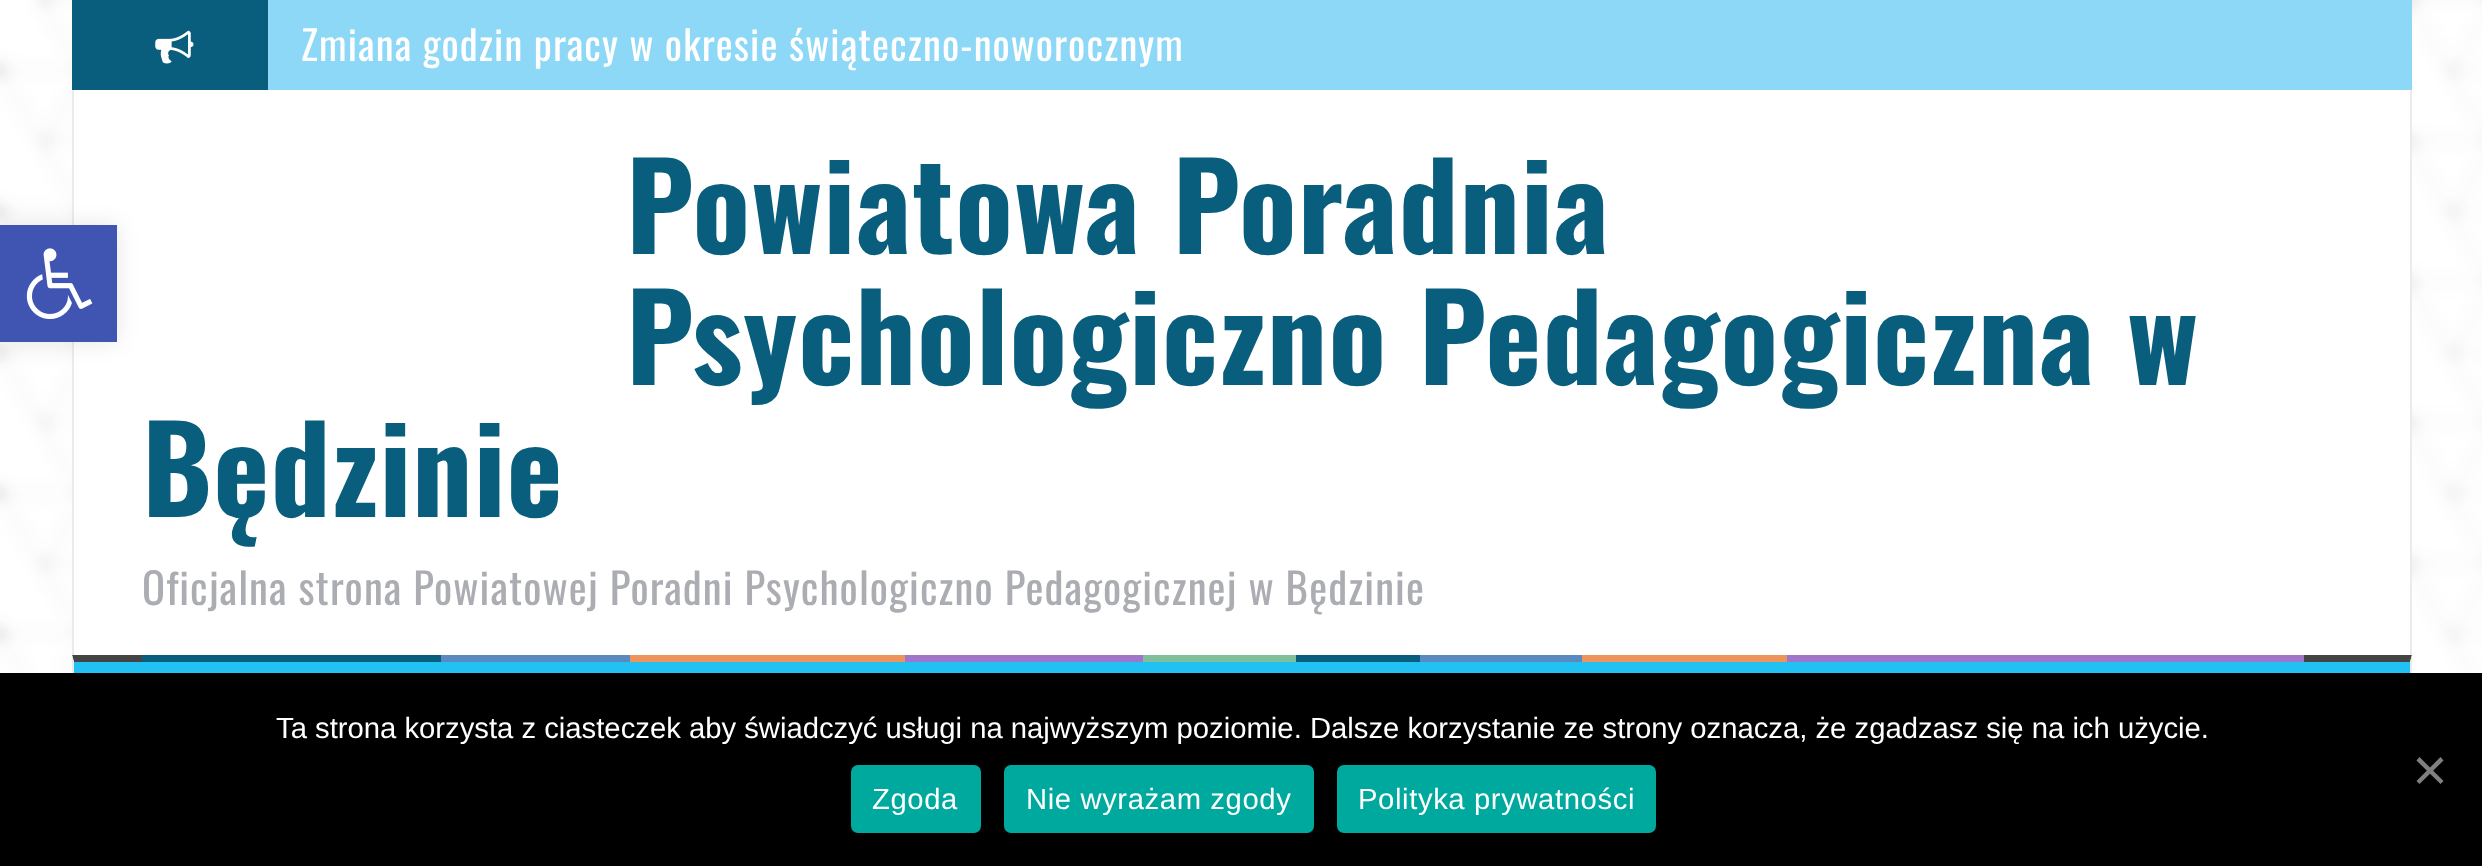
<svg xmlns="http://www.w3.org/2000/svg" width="2482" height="866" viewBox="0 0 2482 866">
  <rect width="100%" height="100%" fill="rgb(255,255,255)"/>
  <image x="0" y="0" width="2482" height="673" href="pic1.png"/>
  <rect x="74" y="90" width="2336" height="565" fill="rgb(255,255,255)"/>
  <rect x="72" y="90" width="2" height="565" fill="rgb(235,235,235)"/>
  <rect x="0" y="225" width="117" height="117" fill="rgba(0,0,0,0.1)" filter="blur(11px)"/>
  <rect x="0" y="225" width="117" height="117" fill="rgb(64,84,178)"/>
  <image x="26" y="248" width="67" height="72" href="pic2.png"/>
  <rect x="72" y="0" width="196" height="90" fill="rgb(8,94,124)"/>
  <image x="155" y="30" width="39" height="34" href="pic3.png"/>
  <rect x="268" y="0" width="2144" height="90" fill="rgb(141,215,247)"/>
  <text x="301" y="61" font-family="Oswald" font-size="40.5" letter-spacing="1.12" fill="rgb(255,255,255)">Zmiana godzin pracy w okresie świąteczno-noworocznym</text>
  <rect x="2410" y="90" width="2" height="565" fill="rgb(235,235,235)"/>
  <g font-family="Oswald" font-size="119.25" font-weight="bold" letter-spacing="1.12" fill="rgb(8,94,124)">
    <text>
      <tspan x="626" y="254">Powiatowa Poradnia</tspan>
      <tspan x="626" y="385">Psychologiczno Pedagogiczna w</tspan>
    </text>
    <text x="142" y="517">Będzinie</text>
  </g>
  <text x="142" y="605" font-family="Oswald" font-size="42.75" letter-spacing="1.12" fill="rgb(171,173,178)">Oficjalna strona Powiatowej Poradni Psychologiczno Pedagogicznej w Będzinie</text>
  <rect x="74" y="662" width="2336" height="11" fill="rgb(33,194,243)"/>
  <path d="M72 655H2412L2410 662H74Z" fill="rgb(68,68,68)"/>
  <path d="M2412 655V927L2410 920V662Z" fill="rgb(235,235,235)"/>
  <path d="M72 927V655L74 662V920Z" fill="rgb(235,235,235)"/>
  <rect x="142" y="655" width="299" height="7" fill="rgb(8,94,124)"/>
  <rect x="441" y="655" width="189" height="7" fill="rgb(91,138,192)"/>
  <rect x="630" y="655" width="275" height="7" fill="rgb(237,148,93)"/>
  <rect x="905" y="655" width="238" height="7" fill="rgb(159,118,202)"/>
  <rect x="1143" y="655" width="153" height="7" fill="rgb(127,192,155)"/>
  <rect x="1296" y="655" width="124" height="7" fill="rgb(8,94,124)"/>
  <rect x="1420" y="655" width="162" height="7" fill="rgb(91,138,192)"/>
  <rect x="1582" y="655" width="205" height="7" fill="rgb(237,148,93)"/>
  <rect x="1787" y="655" width="517" height="7" fill="rgb(159,118,202)"/>
  <rect x="0" y="673" width="2482" height="193" fill="rgb(0,0,0)"/>
  <text x="276" y="738" font-family="Liberation Sans" font-size="29.25" fill="rgb(255,255,255)">Ta strona korzysta z ciasteczek aby świadczyć usługi na najwyższym poziomie. Dalsze korzystanie ze strony oznacza, że zgadzasz się na ich użycie.</text>
  <path d="M2440.5 757L2443.5 760.5L2419.5 784L2416.5 781Z" fill="rgb(128,128,128)"/>
  <path d="M2416.5 760.5L2419.5 757L2443.5 781L2440.5 784Z" fill="rgb(128,128,128)"/>
  <rect x="851" y="765" width="130" height="68" rx="7" fill="rgb(0,169,157)"/>
  <text x="872" y="809" font-family="Liberation Sans" font-size="29.25" letter-spacing="0.6" fill="rgb(255,255,255)">Zgoda</text>
  <rect x="1004" y="765" width="310" height="68" rx="7" fill="rgb(0,169,157)"/>
  <text x="1026" y="809" font-family="Liberation Sans" font-size="29.25" letter-spacing="0.6" fill="rgb(255,255,255)">Nie wyrażam zgody</text>
  <rect x="1337" y="765" width="319" height="68" rx="7" fill="rgb(0,169,157)"/>
  <text x="1358" y="809" font-family="Liberation Sans" font-size="29.25" letter-spacing="0.6" fill="rgb(255,255,255)">Polityka prywatności</text>
</svg>
